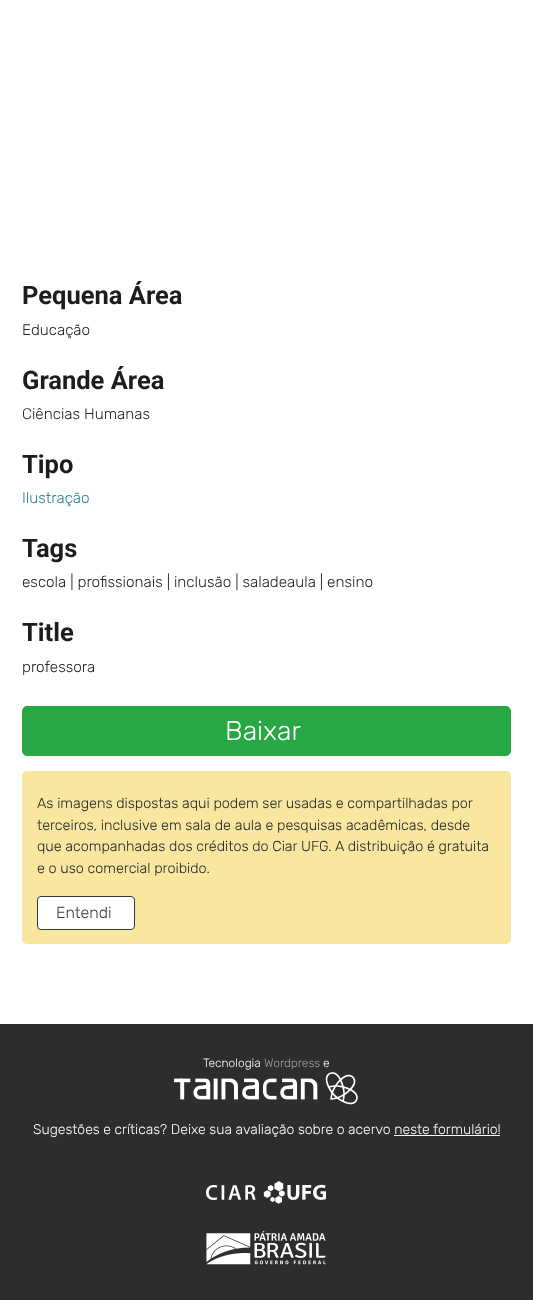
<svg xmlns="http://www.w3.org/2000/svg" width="533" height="1300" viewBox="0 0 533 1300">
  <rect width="100%" height="100%" fill="rgb(255,255,255)"/>
  <text x="22" y="304" font-family="Roboto" font-size="25.5" font-weight="bold" fill="rgb(29,29,29)">Pequena Área</text>
  <text x="22" y="335" font-family="Rubik" font-size="15.3" font-weight="300" fill="rgb(33,37,41)">Educação</text>
  <text x="22" y="389" font-family="Roboto" font-size="25.5" font-weight="bold" fill="rgb(29,29,29)">Grande Área</text>
  <text x="22" y="419" font-family="Rubik" font-size="15.3" font-weight="300" fill="rgb(33,37,41)">Ciências Humanas</text>
  <text x="22" y="473" font-family="Roboto" font-size="25.5" font-weight="bold" fill="rgb(29,29,29)">Tipo</text>
  <text x="22" y="503" font-family="Rubik" font-size="15.3" font-weight="300" fill="rgb(41,133,150)">Ilustração</text>
  <text x="22" y="557" font-family="Roboto" font-size="25.5" font-weight="bold" fill="rgb(29,29,29)">Tags</text>
  <text x="22" y="587" font-family="Rubik" font-size="15.3" font-weight="300" fill="rgb(33,37,41)">escola | profissionais | inclusão | saladeaula | ensino</text>
  <text x="22" y="641" font-family="Roboto" font-size="25.5" font-weight="bold" fill="rgb(29,29,29)">Title</text>
  <text x="22" y="672" font-family="Rubik" font-size="15.3" font-weight="300" fill="rgb(33,37,41)">professora</text>
  <rect x="22.5" y="706.5" width="488" height="49" rx="4.5" fill="rgb(40,167,69)" stroke="rgb(40,167,69)"/>
  <text x="225" y="740" font-family="Rubik" font-size="27" font-weight="300" fill="rgb(255,255,255)">Baixar</text>
  <rect x="22" y="771" width="489" height="173" rx="5" fill="rgb(249,231,159)"/>
  <g font-family="Rubik" font-size="14.4" font-weight="300" fill="rgb(33,37,41)">
    <text>
      <tspan x="37" y="808">As imagens dispostas aqui podem ser usadas e compartilhadas por</tspan>
      <tspan x="37" y="830">terceiros, inclusive em sala de aula e pesquisas acadêmicas, desde</tspan>
      <tspan x="37" y="851">que acompanhadas dos créditos do Ciar UFG. A distribuição é gratuita</tspan>
      <tspan x="37" y="873">e o uso comercial proibido.</tspan>
    </text>
  </g>
  <rect x="37.5" y="896.5" width="97" height="33" rx="3.5" fill="rgb(255,255,255)" stroke="rgb(52,58,64)"/>
  <text x="56" y="918" font-family="Rubik" font-size="16" font-weight="300" fill="rgb(52,58,64)">Entendi</text>
  <rect x="0" y="1024" width="533" height="276" fill="rgb(44,45,45)"/>
  <text x="203" y="1067" font-family="Rubik" font-size="12" font-weight="300" fill="rgb(255,255,255)">Tecnologia</text>
  <text x="264" y="1067" font-family="Rubik" font-size="12" font-weight="300" fill="rgb(159,159,159)">Wordpress</text>
  <text x="323" y="1067" font-family="Rubik" font-size="12" font-weight="300" fill="rgb(255,255,255)">e</text>
  <image x="174" y="1072" width="184" height="33" href="pic1.png"/>
  <text x="33" y="1134" font-family="Rubik" font-size="14" font-weight="300" fill="rgb(255,255,255)">Sugestões e críticas? Deixe sua avaliação sobre o acervo neste formulário!</text>
  <rect x="394" y="1135" width="106" height="1" fill="rgb(255,255,255)"/>
  <image x="206" y="1181" width="120" height="23" href="pic2.png"/>
  <image x="206" y="1230" width="120" height="35" href="pic3.png"/>
</svg>
